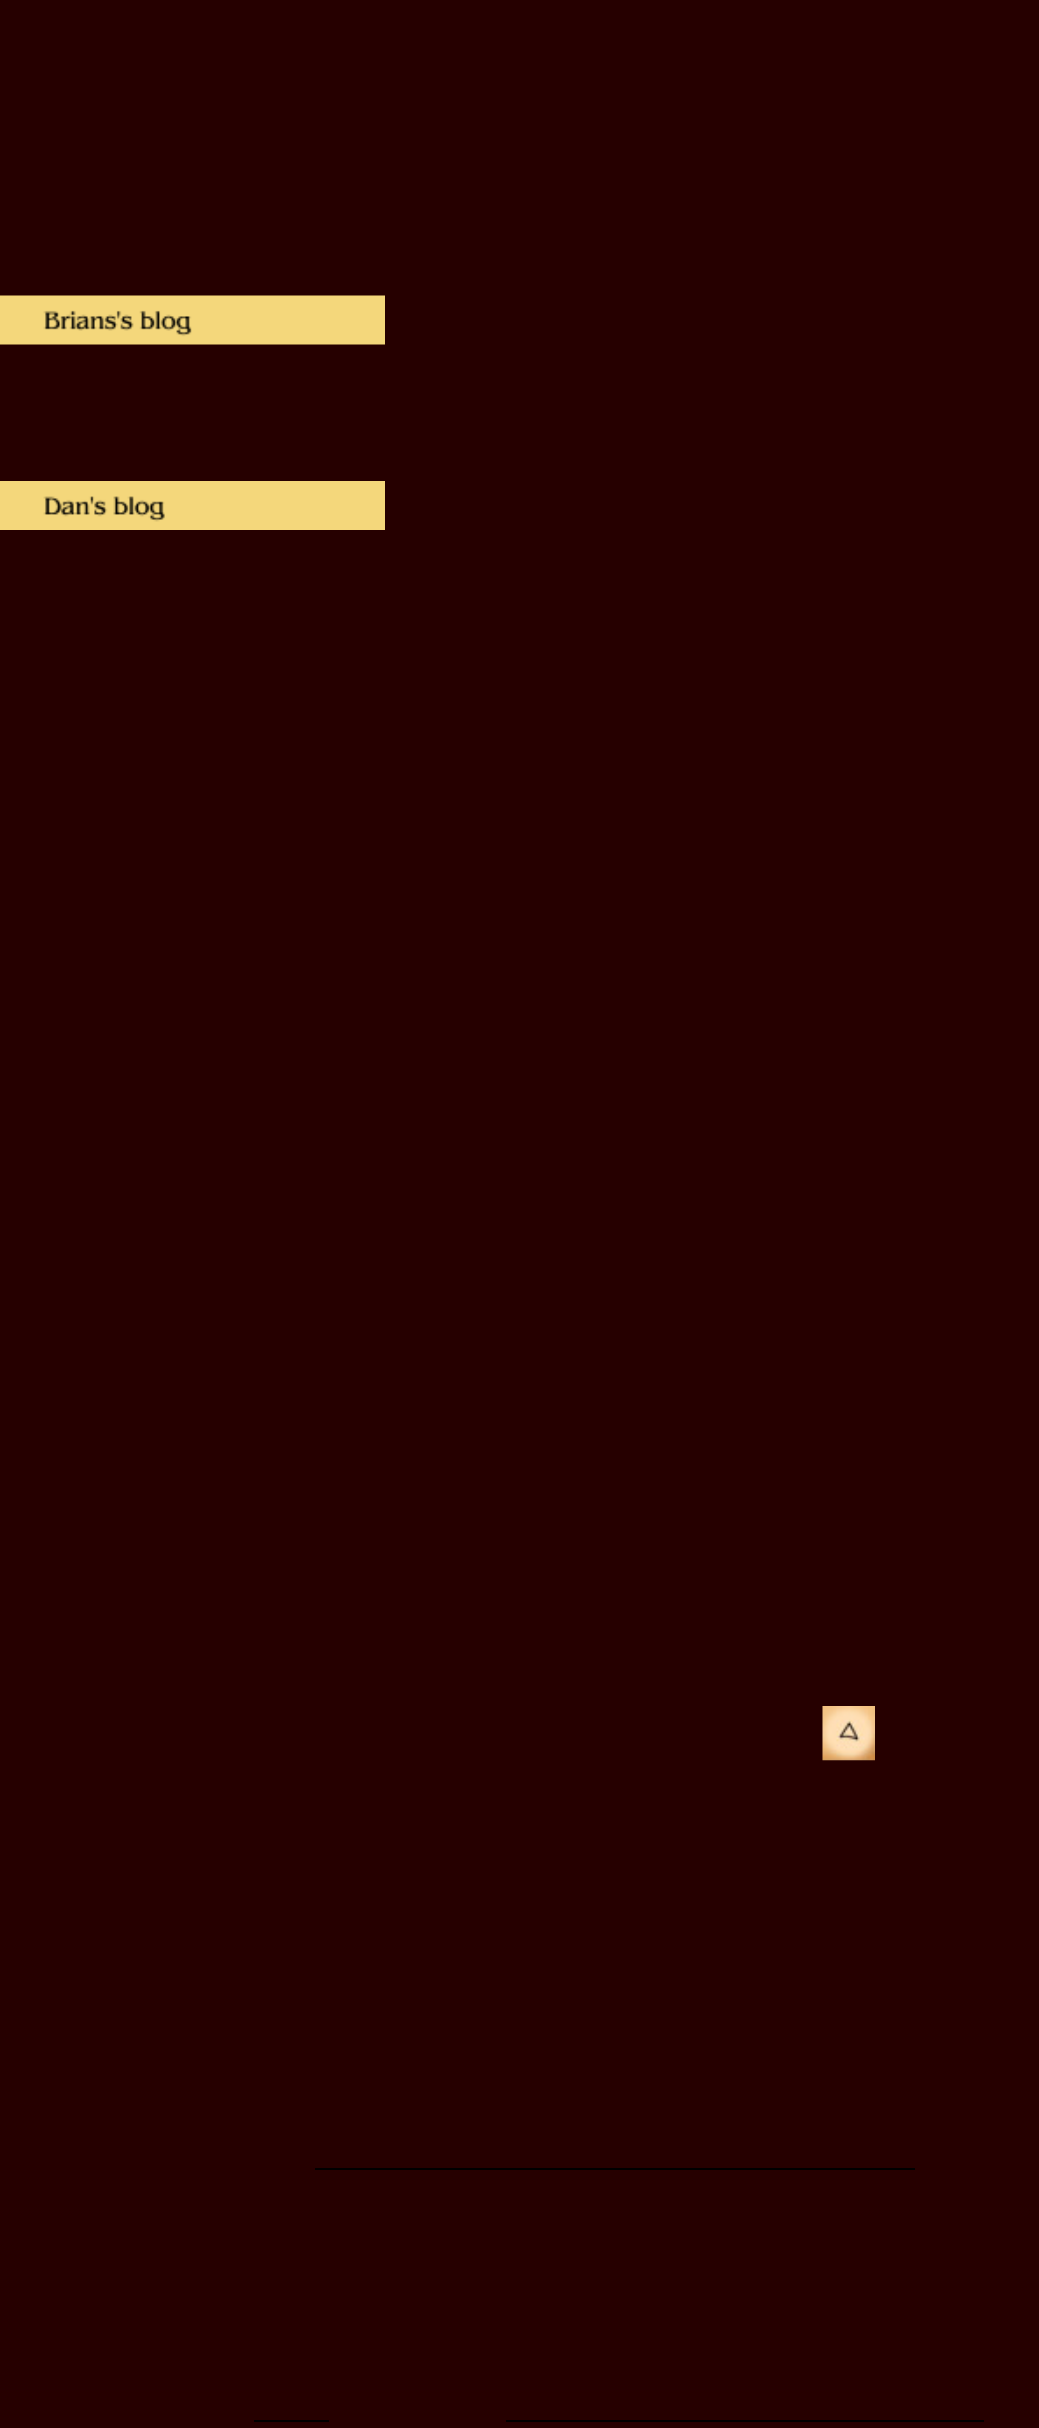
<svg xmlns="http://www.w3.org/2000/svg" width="1039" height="2428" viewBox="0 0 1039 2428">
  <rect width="100%" height="100%" fill="rgb(38,0,0)"/>
  <image x="0" y="295" width="385" height="50" href="pic1.png"/>
  <image x="0" y="481" width="385" height="49" href="pic2.png"/>
  <image x="822" y="1706" width="53" height="55" href="pic3.png"/>
  <rect x="315" y="2168" width="600" height="2" fill="rgb(0,0,0)"/>
  <rect x="254" y="2420" width="75" height="2" fill="rgb(0,0,0)"/>
  <rect x="506" y="2420" width="478" height="2" fill="rgb(0,0,0)"/>
</svg>
